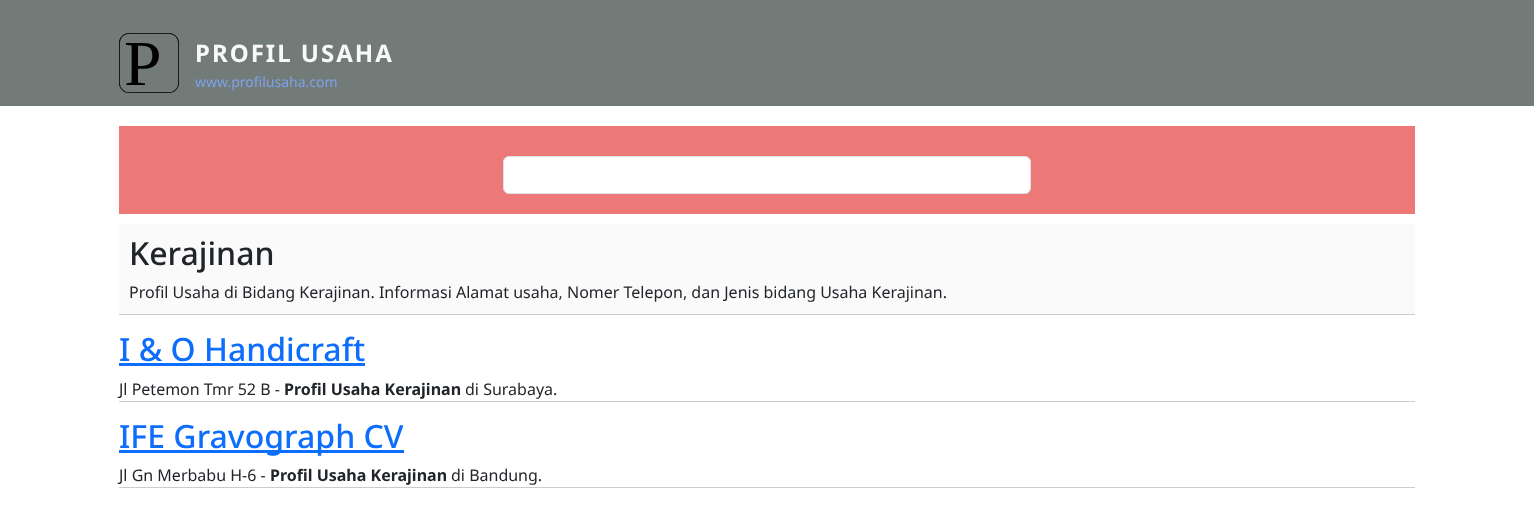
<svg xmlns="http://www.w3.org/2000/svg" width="1534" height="518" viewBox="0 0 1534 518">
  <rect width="100%" height="100%" fill="rgb(255,255,255)"/>
  <rect x="0" y="0" width="1534" height="106" fill="rgb(115,123,121)"/>
  <image x="119" y="33" width="60" height="60" href="pic1.png"/>
  <text x="195" y="62" font-family="Noto Sans" font-size="24" font-weight="bold" letter-spacing="2" fill="rgb(248,249,250)">PROFIL USAHA</text>
  <text x="195" y="87" font-family="Noto Sans" font-size="14" fill="rgb(125,162,232)">www.profilusaha.com</text>
  <rect x="119" y="126" width="1296" height="88" fill="rgb(236,120,120)"/>
  <rect x="503.5" y="156.5" width="527" height="37" rx="5.5" fill="rgb(255,255,255)" stroke="rgb(222,226,230)"/>
  <rect x="119" y="224" width="1296" height="90" fill="rgb(250,250,251)"/>
  <rect x="119" y="314" width="1296" height="1" fill="rgb(204,204,204)"/>
  <text x="129" y="265" font-family="Noto Sans" font-size="32" font-weight="500" fill="rgb(33,37,41)">Kerajinan</text>
  <text x="129" y="298" font-family="Noto Sans" font-size="16" fill="rgb(33,37,41)">Profil Usaha di Bidang Kerajinan. Informasi Alamat usaha, Nomer Telepon, dan Jenis bidang Usaha Kerajinan.</text>
  <rect x="119" y="401" width="1296" height="1" fill="rgb(204,204,204)"/>
  <text x="119" y="361" font-family="Noto Sans" font-size="32" font-weight="500" fill="rgb(13,110,253)">I &amp; O Handicraft</text>
  <rect x="119" y="363" width="246" height="3" fill="rgb(13,110,253)"/>
  <text x="119" y="395" font-family="Noto Sans" font-size="16" fill="rgb(33,37,41)">Jl Petemon Tmr 52 B -</text>
  <text x="284" y="395" font-family="Noto Sans" font-size="16" font-weight="bold" fill="rgb(33,37,41)">Profil Usaha Kerajinan</text>
  <text x="465" y="395" font-family="Noto Sans" font-size="16" fill="rgb(33,37,41)">di Surabaya.</text>
  <rect x="119" y="487" width="1296" height="1" fill="rgb(204,204,204)"/>
  <rect x="119" y="450" width="285" height="3" fill="rgb(13,110,253)"/>
  <text x="119" y="448" font-family="Noto Sans" font-size="32" font-weight="500" fill="rgb(13,110,253)">IFE Gravograph CV</text>
  <text x="119" y="481" font-family="Noto Sans" font-size="16" fill="rgb(33,37,41)">Jl Gn Merbabu H-6 -</text>
  <text x="270" y="481" font-family="Noto Sans" font-size="16" font-weight="bold" fill="rgb(33,37,41)">Profil Usaha Kerajinan</text>
  <text x="451" y="481" font-family="Noto Sans" font-size="16" fill="rgb(33,37,41)">di Bandung.</text>
</svg>
